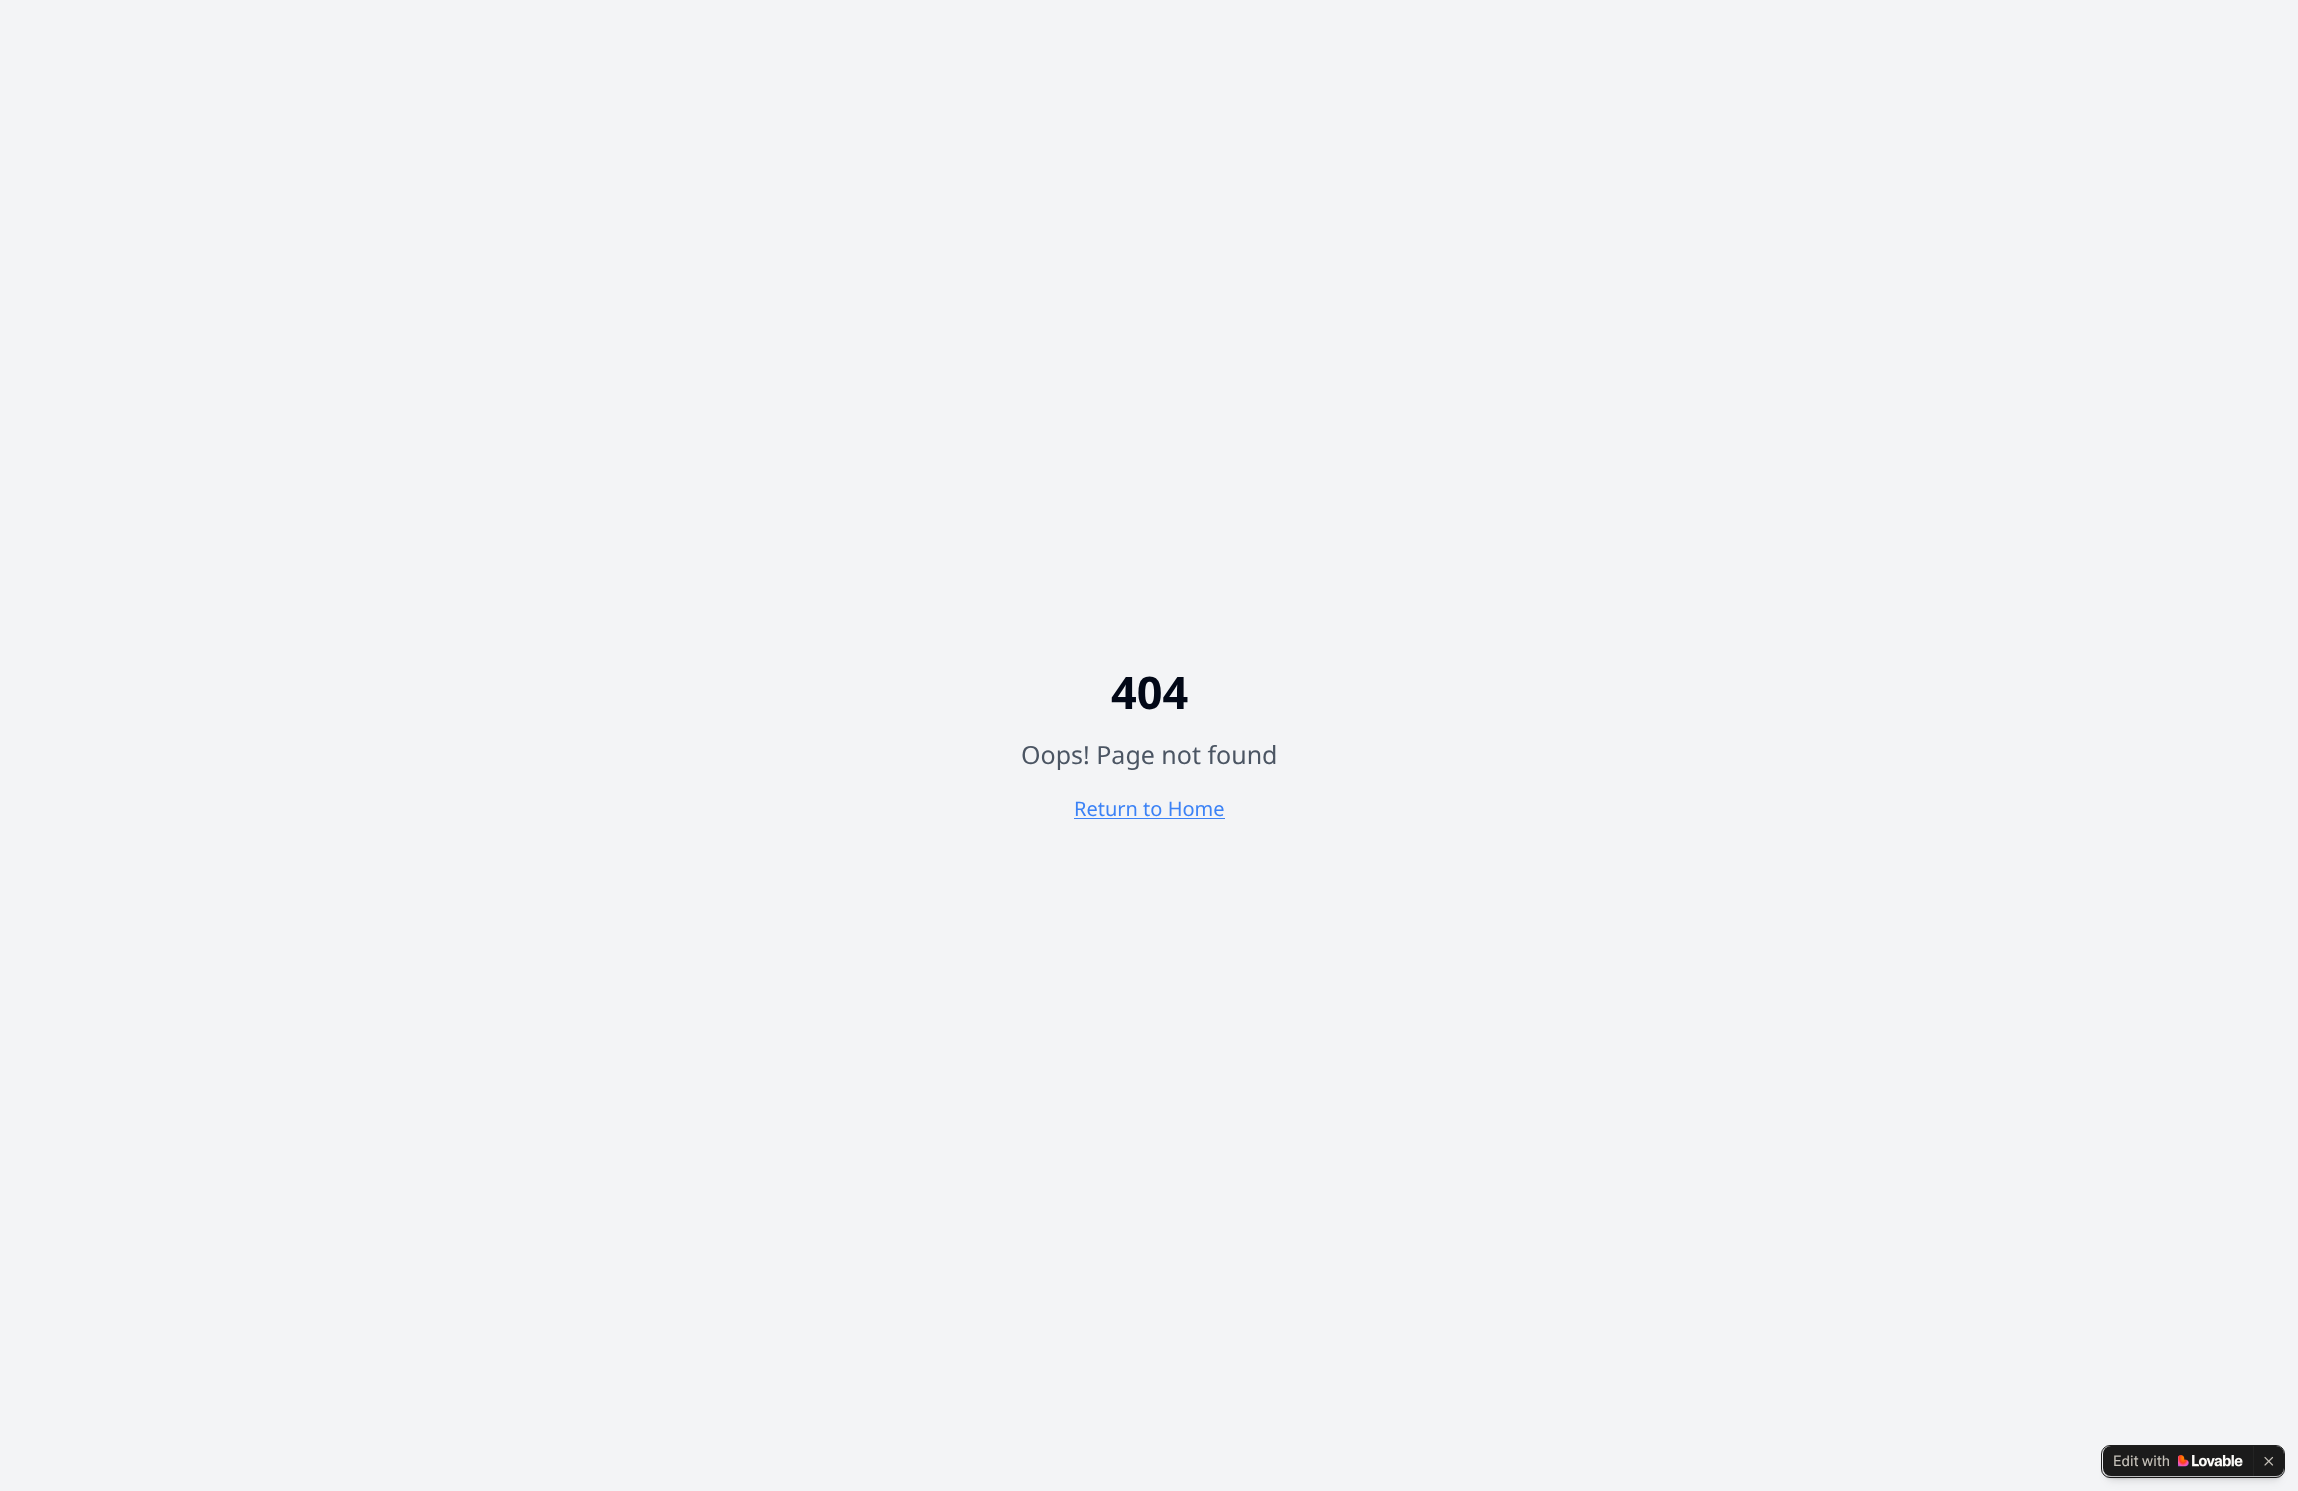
<svg xmlns="http://www.w3.org/2000/svg" width="2298" height="1491" viewBox="0 0 2298 1491">
  <rect width="100%" height="100%" fill="rgb(243,244,246)"/>
  <text x="1111" y="709" font-family="Noto Sans" font-size="45" font-weight="bold" fill="rgb(2,8,23)">404</text>
  <text x="1021" y="764" font-family="Noto Sans" font-size="25" fill="rgb(75,85,99)">Oops! Page not found</text>
  <text x="1074" y="816" font-family="Noto Sans" font-size="20" fill="rgb(59,130,246)">Return to Home</text>
  <rect x="1074" y="818" width="151" height="1" fill="rgb(59,130,246)"/>
  <rect x="2108" y="1461" width="171" height="20" rx="2.5" fill="rgba(0,0,0,0.08)" filter="blur(5px)"/>
  <rect x="2105" y="1454" width="176" height="25" rx="5" fill="rgba(0,0,0,0.08)" filter="blur(2.5px)"/>
  <rect x="2104" y="1450" width="179" height="28" rx="6" fill="rgba(0,0,0,0.08)" filter="blur(1px)"/>
  <path d="M2103 1472C2106 1484 2138 1478 2138 1478H2276C2284 1478 2284 1471 2284 1465V1454V1469C2284 1473 2280 1476 2276 1476H2110C2107 1476 2104 1475 2103 1472Z" fill="rgba(0,0,0,0.04)"/>
  <rect x="2101.5" y="1445.5" width="183" height="32" rx="8.5" fill="none" stroke="rgba(0,0,0,0.88)"/>
  <rect x="2103" y="1446" width="181" height="30" rx="8" fill="rgb(27,27,27)"/>
  <text x="2113" y="1466" font-family="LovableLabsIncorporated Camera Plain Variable" font-size="15" fill="rgb(197,193,185)">Edit with</text>
  <image x="2178" y="1455" width="65" height="12" href="pic1.png"/>
  <rect x="2253" y="1446" width="1" height="30" fill="rgb(36,36,36)"/>
  <image x="2264" y="1456" width="10" height="10" href="pic2.png"/>
</svg>
